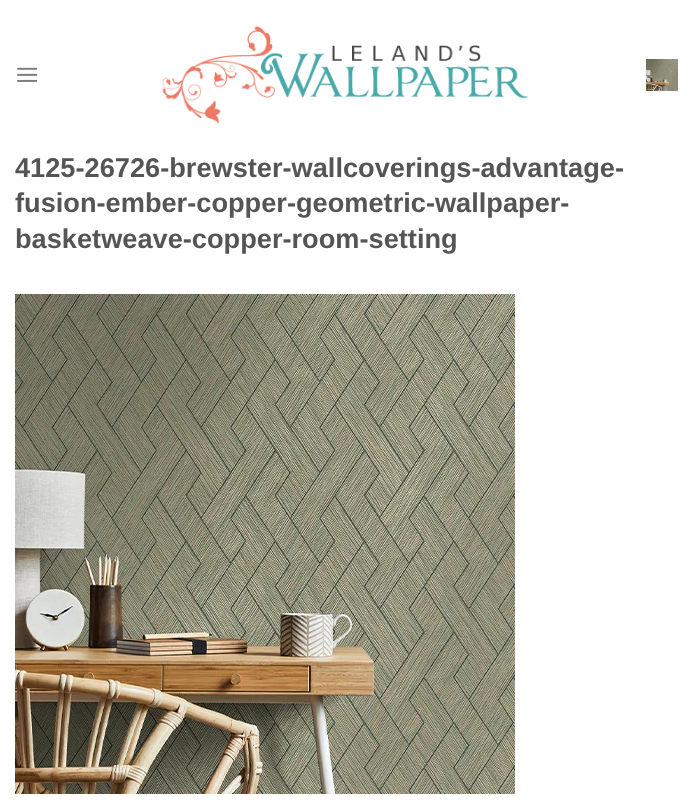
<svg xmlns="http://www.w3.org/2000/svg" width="693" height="810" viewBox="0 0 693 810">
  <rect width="100%" height="100%" fill="rgb(255,255,255)"/>
  <image x="17" y="67" width="21" height="15" href="pic1.png"/>
  <image x="162" y="26" width="367" height="98" href="pic2.png"/>
  <image x="646" y="59" width="32" height="32" href="pic3.png"/>
  <g font-family="Liberation Sans" font-size="27.2" font-weight="bold" fill="rgb(85,85,85)">
    <text>
      <tspan x="15" y="177">4125-26726-brewster-wallcoverings-advantage-</tspan>
      <tspan x="15" y="212">fusion-ember-copper-geometric-wallpaper-</tspan>
      <tspan x="15" y="248">basketweave-copper-room-setting</tspan>
    </text>
  </g>
  <image x="15" y="294" width="500" height="500" href="pic4.png"/>
</svg>
